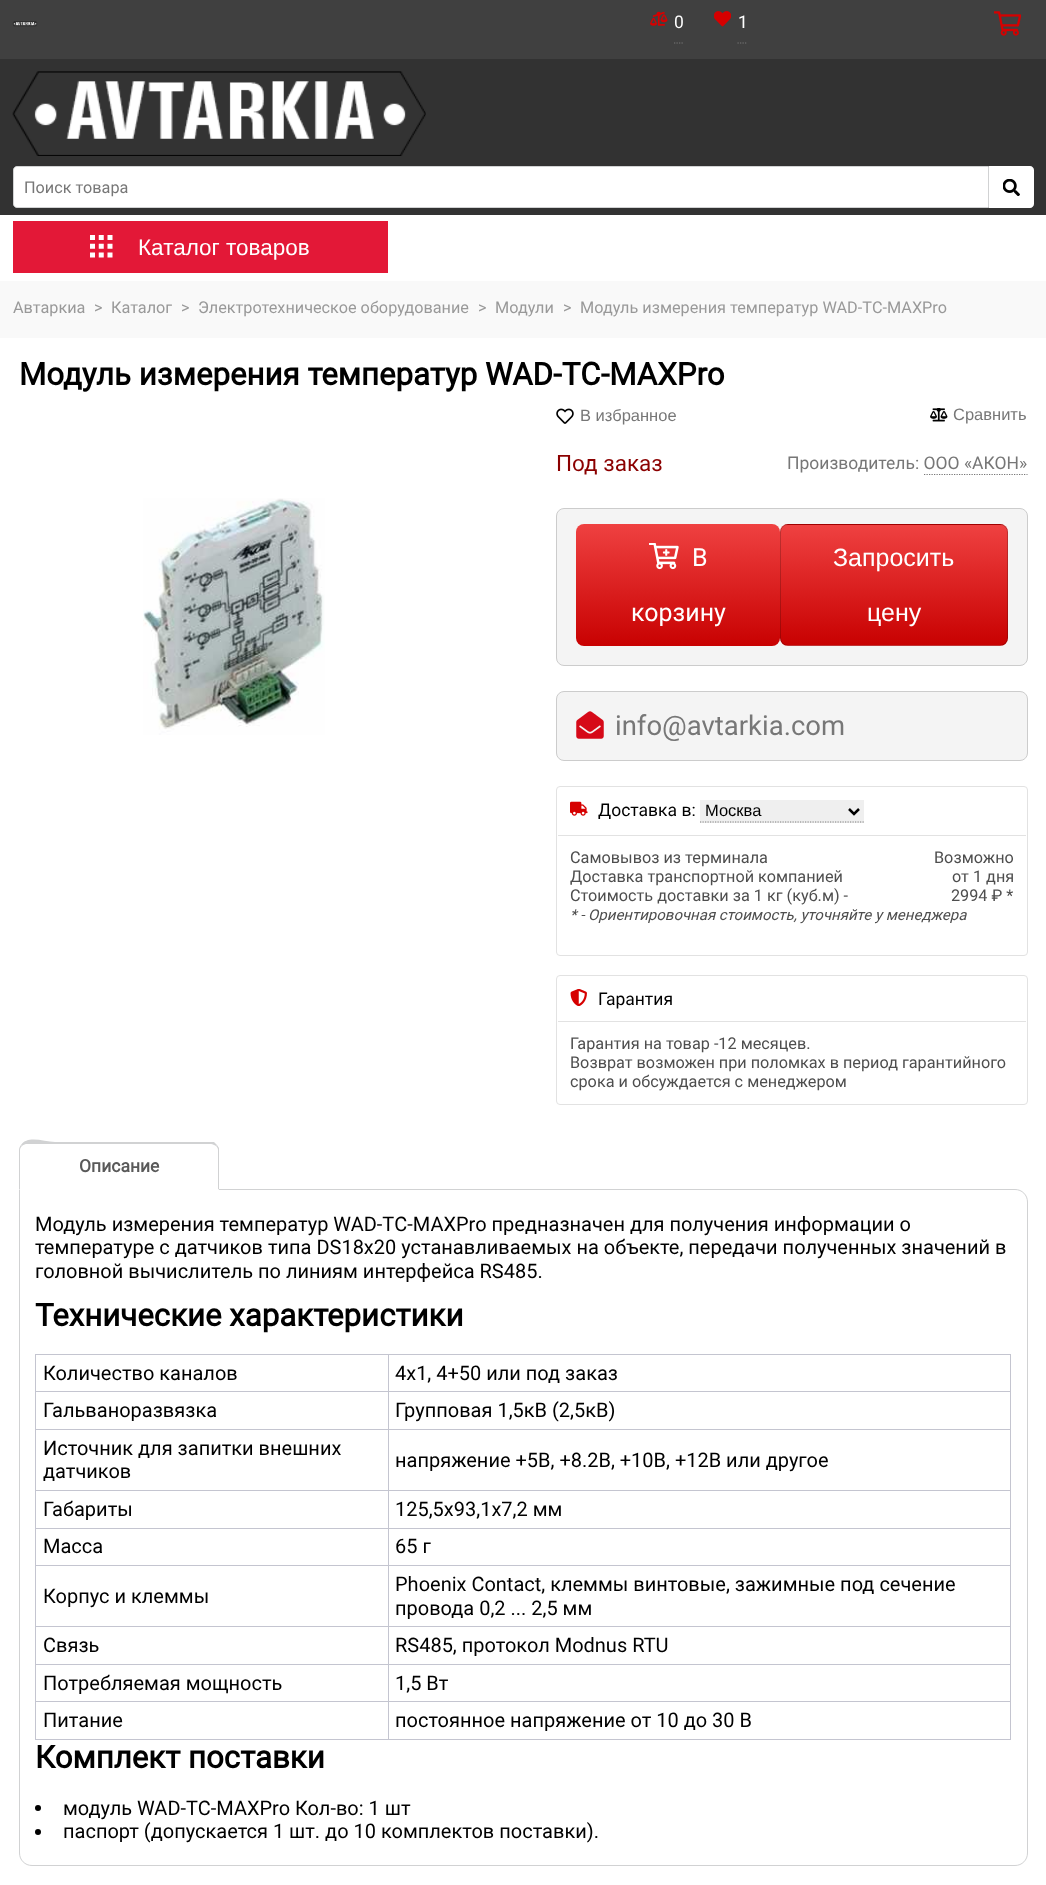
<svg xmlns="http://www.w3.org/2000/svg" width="1046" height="1885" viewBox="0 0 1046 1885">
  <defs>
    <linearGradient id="g1" gradientUnits="userSpaceOnUse" x1="678" y1="646" x2="678" y2="524"><stop offset="0" stop-color="rgb(200,1,1)"/><stop offset="1" stop-color="rgb(239,65,65)"/></linearGradient>
    <clipPath id="clip1"><rect x="780" y="524" width="228" height="122" rx="8"/></clipPath>
    <linearGradient id="g2" gradientUnits="userSpaceOnUse" x1="894" y1="525" x2="894" y2="405"><stop offset="0" stop-color="rgb(200,1,1)"/><stop offset="1" stop-color="rgb(239,65,65)"/></linearGradient>
    <linearGradient id="g3" gradientUnits="userSpaceOnUse" x1="894" y1="645" x2="894" y2="525"><stop offset="0" stop-color="rgb(200,1,1)"/><stop offset="1" stop-color="rgb(239,65,65)"/></linearGradient>
    <linearGradient id="g4" gradientUnits="userSpaceOnUse" x1="894" y1="765" x2="894" y2="645"><stop offset="0" stop-color="rgb(200,1,1)"/><stop offset="1" stop-color="rgb(239,65,65)"/></linearGradient>
  </defs>
  <rect width="100%" height="100%" fill="rgb(249,249,249)"/>
  <rect x="0" y="0" width="1046" height="59" fill="rgb(64,64,64)"/>
  <image x="12" y="21" width="26" height="6" href="pic1.png"/>
  <image x="650" y="11" width="18" height="15" href="pic2.png"/>
  <path d="M674 43H684" fill="none" stroke="rgb(119,119,119)" stroke-width="1.2" stroke-dasharray="1.25 1.25"/>
  <text x="674" y="28" font-family="Roboto" font-size="17.5" fill="rgb(255,255,255)">0</text>
  <image x="714" y="11" width="17" height="16" href="pic3.png"/>
  <path d="M737.5 43H747.5" fill="none" stroke="rgb(119,119,119)" stroke-width="1.2" stroke-dasharray="1.25 1.25"/>
  <text x="738" y="28" font-family="Roboto" font-size="17.5" fill="rgb(255,255,255)">1</text>
  <image x="994" y="11" width="27" height="25" href="pic4.png"/>
  <rect x="0" y="59" width="1046" height="156" fill="rgb(50,50,50)"/>
  <image x="12" y="71" width="414" height="85" href="pic5.png"/>
  <path d="M17 166.5H988.5V207.5H17C15 207.5 13.5 206 13.5 204V170C13.5 168 15 166.5 17 166.5Z" fill="rgb(255,255,255)" stroke="rgb(209,210,211)"/>
  <text x="24" y="193" font-family="Roboto" font-size="16.25" fill="rgb(119,119,119)">Поиск товара</text>
  <path d="M989 166H1030C1032 166 1034 168 1034 170V204C1034 206 1032 208 1030 208H989Z" fill="rgb(255,255,255)"/>
  <image x="1003" y="179" width="17" height="17" href="pic6.png"/>
  <rect x="0" y="215" width="1046" height="66" fill="rgb(255,255,255)"/>
  <rect x="13" y="221" width="375" height="52" fill="rgb(227,24,55)"/>
  <image x="90" y="235" width="23" height="23" href="pic7.png"/>
  <text x="138" y="255" font-family="Liberation Sans" font-size="22.5" fill="rgb(255,255,255)">Каталог товаров</text>
  <g font-family="Roboto" font-size="16.25" fill="rgb(153,153,153)">
    <text x="13" y="313">Автаркиа</text>
    <text x="94" y="313">&gt;</text>
    <text x="111" y="313">Каталог</text>
    <text x="181" y="313">&gt;</text>
    <text x="198" y="313">Электротехническое оборудование</text>
    <text x="478" y="313">&gt;</text>
    <text x="495" y="313">Модули</text>
    <text x="563" y="313">&gt;</text>
    <text x="580" y="313">Модуль измерения температур WAD-TС-MAXPro</text>
  </g>
  <rect x="0" y="338" width="1046" height="1547" fill="rgb(255,255,255)"/>
  <text x="19" y="385" font-family="Roboto" font-size="31.25" font-weight="bold" fill="rgb(0,0,0)">Модуль измерения температур WAD-TС-MAXPro</text>
  <image x="143" y="498" width="182" height="237" href="pic8.png"/>
  <image x="556" y="408" width="18" height="16" href="pic9.png"/>
  <text x="580" y="421" font-family="Liberation Sans" font-size="16.5" fill="rgb(119,119,119)">В избранное</text>
  <image x="930" y="408" width="18" height="14" href="pic10.png"/>
  <text x="953" y="420" font-family="Liberation Sans" font-size="16.5" fill="rgb(119,119,119)">Сравнить</text>
  <text x="556" y="471" font-family="Roboto" font-size="22.5" fill="rgb(139,0,0)">Под заказ</text>
  <text x="787" y="469" font-family="Roboto" font-size="17.5" fill="rgb(119,119,119)">Производитель: ООО «АКОН»</text>
  <path d="M924 474.5H1027.5" fill="none" stroke="rgb(119,119,119)" stroke-width="1.2" stroke-dasharray="1.25 1.25"/>
  <rect x="556.5" y="508.5" width="471" height="157" rx="7.5" fill="rgb(244,244,244)" stroke="rgb(204,204,204)"/>
  <rect x="576" y="524" width="204" height="122" rx="8" fill="url(#g1)"/>
  <image x="649" y="543" width="30" height="27" href="pic11.png"/>
  <g font-family="Roboto" font-size="25" fill="rgb(255,255,255)">
    <text x="692" y="566">В</text>
    <text x="631" y="621">корзину</text>
  </g>
  <g clip-path="url(#clip1)">
    <rect x="780" y="524" width="228" height="1" fill="url(#g2)"/>
    <rect x="780" y="525" width="228" height="120" fill="url(#g3)"/>
    <rect x="780" y="645" width="228" height="1" fill="url(#g4)"/>
  </g>
  <rect x="780.5" y="524.5" width="227" height="121" rx="7.5" fill="none" stroke="rgba(0,0,0,0.2)"/>
  <g font-family="Liberation Sans" font-size="25" fill="rgb(255,255,255)">
    <text x="833" y="566">Запросить</text>
    <text x="867" y="621">цену</text>
  </g>
  <rect x="556.5" y="691.5" width="471" height="69" rx="7.5" fill="rgb(244,244,244)" stroke="rgb(204,204,204)"/>
  <image x="576" y="711" width="28" height="28" href="pic12.png"/>
  <text x="615" y="735" font-family="Roboto" font-size="27.5" fill="rgb(119,119,119)">info@avtarkia.com</text>
  <rect x="556.5" y="786.5" width="471" height="169" rx="3.5" fill="none" stroke="rgb(226,226,226)"/>
  <rect x="558" y="835" width="468" height="1" fill="rgb(226,226,226)"/>
  <image x="570" y="801" width="18" height="15" href="pic13.png"/>
  <text x="598" y="816" font-family="Roboto" font-size="17.5" fill="rgb(0,0,0)">Доставка в:</text>
  <rect x="700" y="800" width="164" height="23" fill="rgb(239,239,239)"/>
  <path d="M700 822H864" fill="none" stroke="rgb(128,128,128)" stroke-width="1.2" stroke-dasharray="1.25 1.25"/>
  <path d="M849 809L854 814L859 809" fill="none" stroke="rgb(0,0,0)" stroke-width="2.5"/>
  <text x="705" y="816" font-family="Liberation Sans" font-size="16.5" fill="rgb(0,0,0)">Москва</text>
  <g font-family="Roboto" font-size="16.25" fill="rgb(78,78,78)">
    <text x="570" y="863">Самовывоз из терминала</text>
    <text x="934" y="863">Возможно</text>
    <text x="570" y="882">Доставка транспортной компанией</text>
    <text x="952" y="882">от 1 дня</text>
    <text x="570" y="901">Стоимость доставки за 1 кг (куб.м) -</text>
    <text x="951" y="901">2994 ₽ *</text>
  </g>
  <text x="570" y="920" font-family="Roboto" font-size="15" font-style="italic" fill="rgb(78,78,78)">* - Ориентировочная стоимость, уточняйте у менеджера</text>
  <rect x="556.5" y="975.5" width="471" height="129" rx="3.5" fill="none" stroke="rgb(226,226,226)"/>
  <rect x="558" y="1021" width="468" height="1" fill="rgb(226,226,226)"/>
  <image x="570" y="989" width="17" height="17" href="pic14.png"/>
  <text x="598" y="1005" font-family="Roboto" font-size="17.5" fill="rgb(0,0,0)">Гарантия</text>
  <g font-family="Roboto" font-size="16.25" fill="rgb(78,78,78)">
    <text>
      <tspan x="570" y="1049">Гарантия на товар -12 месяцев.</tspan>
      <tspan x="570" y="1068">Возврат возможен при поломках в период гарантийного</tspan>
      <tspan x="570" y="1087">срока и обсуждается с менеджером</tspan>
    </text>
  </g>
  <path d="M19.5 1189.5H1015C1022 1189.5 1027.5 1195 1027.5 1202V1853C1027.5 1860 1022 1865.5 1015 1865.5H32C25 1865.5 19.5 1860 19.5 1853Z" fill="none" stroke="rgb(209,210,211)"/>
  <path d="M27 1143H211C215.5 1143 219 1146.5 219 1151V1190H19V1151C19 1146.5 22.5 1143 27 1143Z" fill="rgb(255,255,255)"/>
  <path d="M26 1144C25 1144 23 1145 22 1146L21 1145C28 1135 44 1142 55 1142H214L217 1145L216 1146C214 1145 213 1144 211 1144Z" fill="rgb(209,210,211)"/>
  <path d="M219 1148V1190L218 1189V1150C218 1148 217 1147 216 1146L217 1145Z" fill="rgb(209,210,211)"/>
  <path d="M219 1190L218 1189H20L19 1190Z" fill="rgb(255,255,255)"/>
  <path d="M19 1190V1150C19 1148 20 1146 21 1145L22 1146C21 1147 20 1148 20 1150V1189Z" fill="rgb(209,210,211)"/>
  <text x="79" y="1172" font-family="Roboto" font-size="17.5" font-weight="bold" fill="rgb(89,89,89)">Описание</text>
  <g font-family="Roboto" font-size="20" fill="rgb(0,0,0)">
    <text>
      <tspan x="35" y="1231">Модуль измерения температур WAD-TС-MAXPro предназначен для получения информации о</tspan>
      <tspan x="35" y="1254">температуре с датчиков типа DS18x20 устанавливаемых на объекте, передачи полученных значений в</tspan>
      <tspan x="35" y="1278">головной вычислитель по линиям интерфейса RS485.</tspan>
    </text>
  </g>
  <text x="35" y="1326" font-family="Roboto" font-size="31.25" font-weight="bold" fill="rgb(0,0,0)">Технические характеристики</text>
  <rect x="388" y="1354" width="623" height="1" fill="rgb(196,197,208)"/>
  <rect x="388" y="1391" width="623" height="1" fill="rgb(196,197,208)"/>
  <rect x="388" y="1429" width="623" height="1" fill="rgb(196,197,208)"/>
  <rect x="388" y="1490" width="623" height="1" fill="rgb(196,197,208)"/>
  <rect x="388" y="1528" width="623" height="1" fill="rgb(196,197,208)"/>
  <rect x="388" y="1565" width="623" height="1" fill="rgb(196,197,208)"/>
  <rect x="388" y="1626" width="623" height="1" fill="rgb(196,197,208)"/>
  <rect x="388" y="1664" width="623" height="1" fill="rgb(196,197,208)"/>
  <rect x="388" y="1701" width="623" height="1" fill="rgb(196,197,208)"/>
  <rect x="1010" y="1701" width="1" height="39" fill="rgb(196,197,208)"/>
  <rect x="388" y="1739" width="623" height="1" fill="rgb(196,197,208)"/>
  <rect x="388" y="1701" width="1" height="39" fill="rgb(196,197,208)"/>
  <rect x="35" y="1701" width="354" height="1" fill="rgb(196,197,208)"/>
  <rect x="388" y="1664" width="1" height="39" fill="rgb(196,197,208)"/>
  <rect x="35" y="1664" width="354" height="1" fill="rgb(196,197,208)"/>
  <rect x="388" y="1626" width="1" height="39" fill="rgb(196,197,208)"/>
  <rect x="35" y="1626" width="354" height="1" fill="rgb(196,197,208)"/>
  <rect x="388" y="1565" width="1" height="63" fill="rgb(196,197,208)"/>
  <rect x="35" y="1565" width="354" height="1" fill="rgb(196,197,208)"/>
  <rect x="388" y="1528" width="1" height="38" fill="rgb(196,197,208)"/>
  <rect x="35" y="1528" width="354" height="1" fill="rgb(196,197,208)"/>
  <rect x="388" y="1490" width="1" height="39" fill="rgb(196,197,208)"/>
  <rect x="35" y="1490" width="354" height="1" fill="rgb(196,197,208)"/>
  <rect x="388" y="1429" width="1" height="62" fill="rgb(196,197,208)"/>
  <rect x="35" y="1429" width="354" height="1" fill="rgb(196,197,208)"/>
  <rect x="388" y="1391" width="1" height="39" fill="rgb(196,197,208)"/>
  <rect x="35" y="1391" width="354" height="1" fill="rgb(196,197,208)"/>
  <rect x="388" y="1354" width="1" height="39" fill="rgb(196,197,208)"/>
  <rect x="35" y="1354" width="354" height="1" fill="rgb(196,197,208)"/>
  <rect x="35" y="1739" width="354" height="1" fill="rgb(196,197,208)"/>
  <rect x="35" y="1701" width="1" height="39" fill="rgb(196,197,208)"/>
  <rect x="35" y="1664" width="1" height="39" fill="rgb(196,197,208)"/>
  <rect x="35" y="1626" width="1" height="39" fill="rgb(196,197,208)"/>
  <rect x="35" y="1565" width="1" height="63" fill="rgb(196,197,208)"/>
  <rect x="35" y="1528" width="1" height="38" fill="rgb(196,197,208)"/>
  <rect x="35" y="1490" width="1" height="39" fill="rgb(196,197,208)"/>
  <rect x="35" y="1429" width="1" height="62" fill="rgb(196,197,208)"/>
  <rect x="35" y="1391" width="1" height="39" fill="rgb(196,197,208)"/>
  <rect x="35" y="1354" width="1" height="39" fill="rgb(196,197,208)"/>
  <text x="43" y="1380" font-family="Roboto" font-size="20" fill="rgb(0,0,0)">Количество каналов</text>
  <rect x="1010" y="1664" width="1" height="39" fill="rgb(196,197,208)"/>
  <rect x="1010" y="1626" width="1" height="39" fill="rgb(196,197,208)"/>
  <rect x="1010" y="1565" width="1" height="63" fill="rgb(196,197,208)"/>
  <rect x="1010" y="1528" width="1" height="38" fill="rgb(196,197,208)"/>
  <rect x="1010" y="1490" width="1" height="39" fill="rgb(196,197,208)"/>
  <rect x="1010" y="1429" width="1" height="62" fill="rgb(196,197,208)"/>
  <rect x="1010" y="1391" width="1" height="39" fill="rgb(196,197,208)"/>
  <rect x="1010" y="1354" width="1" height="39" fill="rgb(196,197,208)"/>
  <g font-family="Roboto" font-size="20" fill="rgb(0,0,0)">
    <text x="395" y="1380">4х1, 4+50 или под заказ</text>
    <text x="43" y="1417">Гальваноразвязка</text>
    <text x="395" y="1417">Групповая 1,5кВ (2,5кВ)</text>
    <text>
      <tspan x="43" y="1455">Источник для запитки внешних</tspan>
      <tspan x="43" y="1478">датчиков</tspan>
    </text>
    <text x="395" y="1467">напряжение +5В, +8.2В, +10В, +12В или другое</text>
    <text x="43" y="1516">Габариты</text>
    <text x="395" y="1516">125,5х93,1х7,2 мм</text>
    <text x="43" y="1553">Масса</text>
    <text x="395" y="1553">65 г</text>
    <text x="43" y="1603">Корпус и клеммы</text>
    <text>
      <tspan x="395" y="1591">Phoenix Contact, клеммы винтовые, зажимные под сечение</tspan>
      <tspan x="395" y="1615">провода 0,2 ... 2,5 мм</tspan>
    </text>
    <text x="43" y="1652">Связь</text>
    <text x="395" y="1652">RS485, протокол Modnus RTU</text>
    <text x="43" y="1690">Потребляемая мощность</text>
    <text x="395" y="1690">1,5 Вт</text>
    <text x="43" y="1727">Питание</text>
    <text x="395" y="1727">постоянное напряжение от 10 до 30 В</text>
  </g>
  <text x="35" y="1768" font-family="Roboto" font-size="31.25" font-weight="bold" fill="rgb(0,0,0)">Комплект поставки</text>
  <circle cx="38" cy="1808" r="3" fill="rgb(0,0,0)"/>
  <text x="63" y="1815" font-family="Roboto" font-size="20" fill="rgb(0,0,0)">модуль WAD-TC-MAXPro Кол-во: 1 шт</text>
  <circle cx="38" cy="1832" r="3" fill="rgb(0,0,0)"/>
  <text x="63" y="1838" font-family="Roboto" font-size="20" fill="rgb(0,0,0)">паспорт (допускается 1 шт. до 10 комплектов поставки).</text>
</svg>
